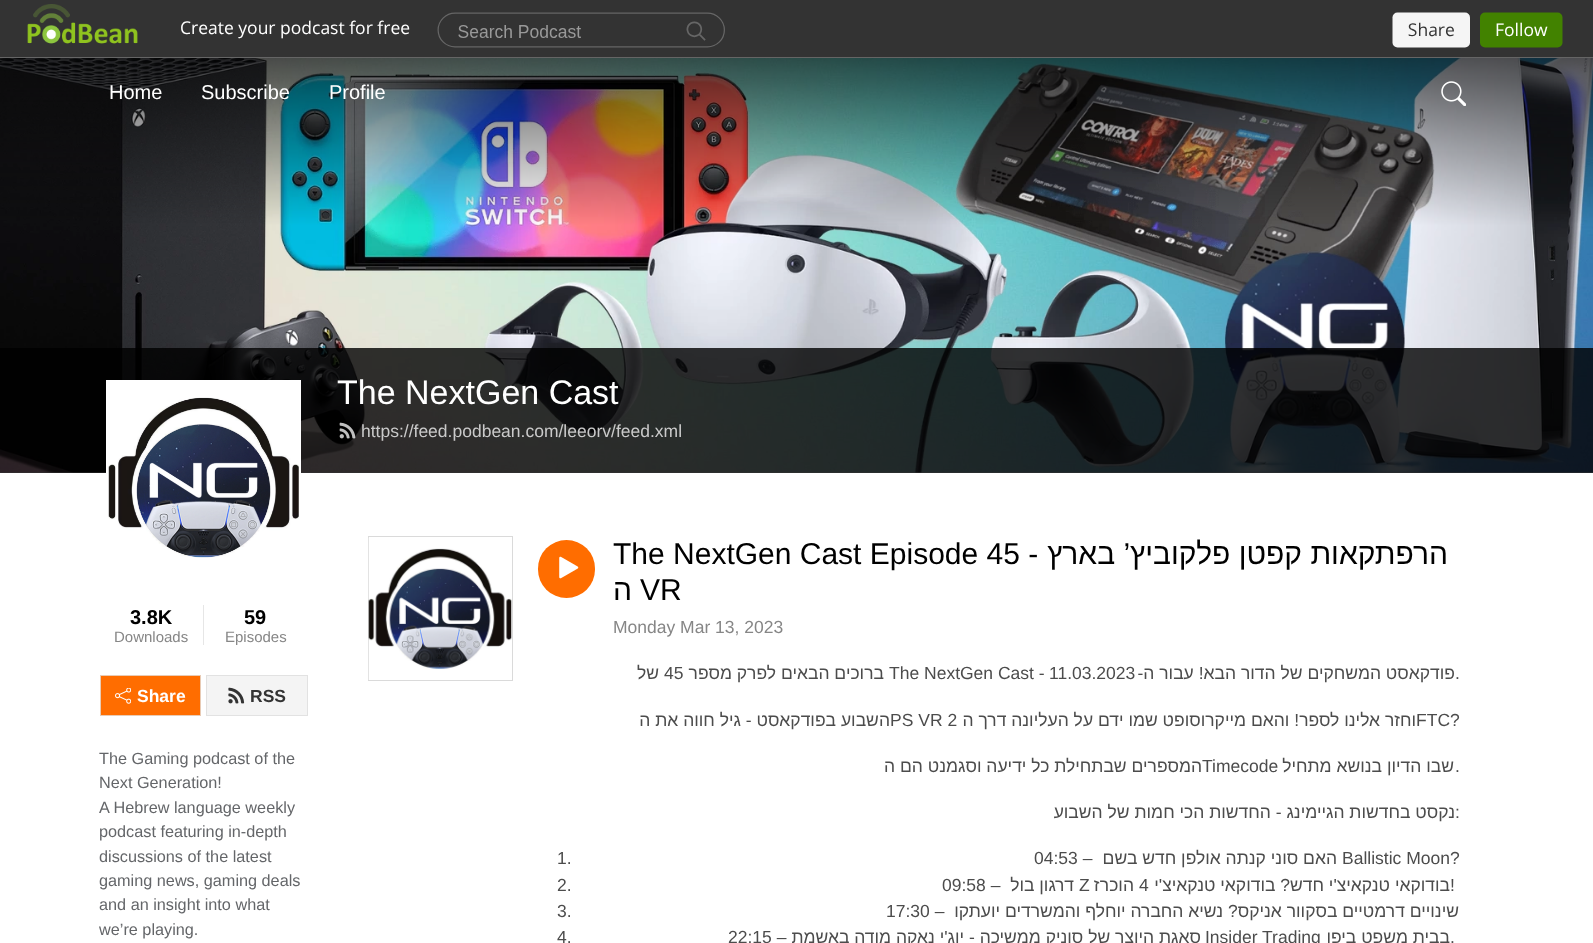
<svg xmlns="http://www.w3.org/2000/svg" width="1593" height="943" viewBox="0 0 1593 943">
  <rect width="100%" height="100%" fill="rgb(255,255,255)"/>
  <rect x="0" y="0" width="1593" height="4" fill="rgb(51,51,51)"/>
  <image x="0" y="4" width="1593" height="54" href="pic1.png"/>
  <image x="0" y="58" width="1593" height="415" href="pic3.png"/>
  <image x="1441" y="81" width="25" height="25" href="pic2.png"/>
  <g font-family="Liberation Sans" font-size="20" fill="rgb(255,255,255)">
    <text x="329" y="99">Profile</text>
    <text x="201" y="99">Subscribe</text>
    <text x="109" y="99">Home</text>
  </g>
  <rect x="0" y="348" width="1593" height="125" fill="rgba(0,0,0,0.8)"/>
  <text x="337" y="404" font-family="Liberation Sans" font-size="34" fill="rgb(255,255,255)">The NextGen Cast</text>
  <text x="361" y="437" font-family="Liberation Sans" font-size="17.5" fill="rgb(202,202,202)">https://feed.podbean.com/leeorv/feed.xml</text>
  <image x="339" y="422" width="17" height="17" href="pic4.png"/>
  <text x="1448" y="564" font-family="Liberation Sans" font-size="30" direction="rtl" fill="rgb(0,0,0)">הרפתקאות קפטן פלקוביץ’ בארץ</text>
  <g font-family="Liberation Sans" font-size="30" fill="rgb(0,0,0)">
    <text x="613" y="564">The NextGen Cast Episode 45 -</text>
    <text x="640" y="600">VR</text>
  </g>
  <text x="632" y="600" font-family="Liberation Sans" font-size="30" direction="rtl" fill="rgb(0,0,0)">ה</text>
  <text x="613" y="633" font-family="Liberation Sans" font-size="17.5" fill="rgb(134,134,134)">Monday Mar 13, 2023</text>
  <rect x="538" y="540" width="57" height="58" rx="28.5" fill="rgb(255,109,0)"/>
  <image x="559" y="556" width="20" height="23" href="pic5.png"/>
  <text x="1455" y="679" font-family="Liberation Sans" font-size="17.5" fill="rgb(76,76,76)">.</text>
  <text x="1455" y="679" font-family="Liberation Sans" font-size="17.5" direction="rtl" fill="rgb(76,76,76)">פודקאסט המשחקים של הדור הבא! עבור ה-</text>
  <g font-family="Liberation Sans" font-size="17.5" fill="rgb(76,76,76)">
    <text x="1049" y="679">11.03.2023</text>
    <text x="889" y="679">The NextGen Cast -</text>
  </g>
  <text x="884" y="679" font-family="Liberation Sans" font-size="17.5" direction="rtl" fill="rgb(76,76,76)">ברוכים הבאים לפרק מספר</text>
  <text x="664" y="679" font-family="Liberation Sans" font-size="17.5" fill="rgb(76,76,76)">45</text>
  <text x="659" y="679" font-family="Liberation Sans" font-size="17.5" direction="rtl" fill="rgb(76,76,76)">של</text>
  <text x="1416" y="726" font-family="Liberation Sans" font-size="17.5" fill="rgb(76,76,76)">FTC?</text>
  <text x="1416" y="726" font-family="Liberation Sans" font-size="17.5" direction="rtl" fill="rgb(76,76,76)">וחזר אלינו לספר! והאם מייקרוסופט שמו ידם על העליונה דרך ה</text>
  <text x="890" y="726" font-family="Liberation Sans" font-size="17.5" fill="rgb(76,76,76)">PS VR 2</text>
  <text x="890" y="726" font-family="Liberation Sans" font-size="17.5" direction="rtl" fill="rgb(76,76,76)">השבוע בפודקאסט - גיל חווה את ה</text>
  <text x="1455" y="772" font-family="Liberation Sans" font-size="17.5" fill="rgb(76,76,76)">.</text>
  <text x="1454" y="772" font-family="Liberation Sans" font-size="17.5" direction="rtl" fill="rgb(76,76,76)">שבו הדיון בנושא מתחיל</text>
  <text x="1202" y="772" font-family="Liberation Sans" font-size="17.5" fill="rgb(76,76,76)">Timecode</text>
  <text x="1202" y="772" font-family="Liberation Sans" font-size="17.5" direction="rtl" fill="rgb(76,76,76)">המספרים שבתחילת כל ידיעה וסגמנט הם ה</text>
  <text x="1455" y="818" font-family="Liberation Sans" font-size="17.5" fill="rgb(76,76,76)">:</text>
  <text x="1455" y="818" font-family="Liberation Sans" font-size="17.5" direction="rtl" fill="rgb(76,76,76)">נקסט בחדשות הגיימינג - החדשות הכי חמות של השבוע</text>
  <text x="1342" y="864" font-family="Liberation Sans" font-size="17.5" fill="rgb(76,76,76)">Ballistic Moon?</text>
  <text x="1337" y="864" font-family="Liberation Sans" font-size="17.5" direction="rtl" fill="rgb(76,76,76)">האם סוני קנתה אולפן חדש בשם</text>
  <g font-family="Liberation Sans" font-size="17.5" fill="rgb(76,76,76)">
    <text x="1034" y="864">04:53 –</text>
    <text x="557" y="864">1.</text>
    <text x="1450" y="891">!</text>
  </g>
  <text x="1450" y="891" font-family="Liberation Sans" font-size="17.5" direction="rtl" fill="rgb(76,76,76)">בודוקאי טנקאיצ'י חדש? בודוקאי טנקאיצ'י</text>
  <text x="1139" y="891" font-family="Liberation Sans" font-size="17.5" fill="rgb(76,76,76)">4</text>
  <text x="1134" y="891" font-family="Liberation Sans" font-size="17.5" direction="rtl" fill="rgb(76,76,76)">הוכרז</text>
  <text x="1079" y="891" font-family="Liberation Sans" font-size="17.5" fill="rgb(76,76,76)">Z</text>
  <text x="1074" y="891" font-family="Liberation Sans" font-size="17.5" direction="rtl" fill="rgb(76,76,76)">דרגון בול</text>
  <g font-family="Liberation Sans" font-size="17.5" fill="rgb(76,76,76)">
    <text x="942" y="891">09:58 –</text>
    <text x="557" y="891">2.</text>
  </g>
  <text x="1459" y="917" font-family="Liberation Sans" font-size="17.5" direction="rtl" fill="rgb(76,76,76)">שינויים דרמטיים בסקוור אניקס? נשיא החברה יוחלף והמשרדים יועתקו</text>
  <g font-family="Liberation Sans" font-size="17.5" fill="rgb(76,76,76)">
    <text x="886" y="917">17:30 –</text>
    <text x="557" y="917">3.</text>
    <text x="1450" y="943">.</text>
  </g>
  <text x="1450" y="943" font-family="Liberation Sans" font-size="17.5" direction="rtl" fill="rgb(76,76,76)">בבית משפט ביפן</text>
  <text x="1205" y="943" font-family="Liberation Sans" font-size="17.5" fill="rgb(76,76,76)">Insider Trading</text>
  <text x="1201" y="943" font-family="Liberation Sans" font-size="17.5" direction="rtl" fill="rgb(76,76,76)">סאגת היוצר של סוניק ממשיכה - יוג'י נאקה מודה באשמת</text>
  <g font-family="Liberation Sans" font-size="17.5" fill="rgb(76,76,76)">
    <text x="728" y="943">22:15 –</text>
    <text x="557" y="943">4.</text>
  </g>
  <rect x="368.5" y="536.5" width="144" height="144" fill="none" stroke="rgb(218,218,218)"/>
  <image x="368" y="537" width="144" height="143" href="pic6.png"/>
  <rect x="107.5" y="381.5" width="192" height="192" fill="none" stroke="rgb(255,255,255)" stroke-width="3"/>
  <image x="108" y="383" width="191" height="175" href="pic7.png"/>
  <text x="244" y="624" font-family="Liberation Sans" font-size="20" font-weight="bold" fill="rgb(0,0,0)">59</text>
  <text x="225" y="642" font-family="Liberation Sans" font-size="15" fill="rgb(134,134,134)">Episodes</text>
  <rect x="203" y="605" width="1" height="40" fill="rgb(230,230,230)"/>
  <text x="130" y="624" font-family="Liberation Sans" font-size="20" font-weight="bold" fill="rgb(0,0,0)">3.8K</text>
  <text x="114" y="642" font-family="Liberation Sans" font-size="15" fill="rgb(134,134,134)">Downloads</text>
  <rect x="206.5" y="675.5" width="101" height="40" fill="rgb(244,244,244)" stroke="rgb(226,226,226)"/>
  <text x="250" y="702" font-family="Liberation Sans" font-size="17.5" font-weight="bold" fill="rgb(51,51,51)">RSS</text>
  <image x="228" y="687" width="17" height="17" href="pic8.png"/>
  <rect x="100.5" y="675.5" width="100" height="40" fill="rgb(255,109,0)" stroke="rgb(232,203,181)"/>
  <text x="137" y="702" font-family="Liberation Sans" font-size="17.5" font-weight="bold" fill="rgb(255,255,255)">Share</text>
  <image x="115" y="688" width="16" height="16" href="pic9.png"/>
  <g font-family="Liberation Sans" font-size="16.25" fill="rgb(100,102,105)">
    <text>
      <tspan x="99" y="764">The Gaming podcast of the</tspan>
      <tspan x="99" y="788">Next Generation!</tspan>
      <tspan x="99" y="813">A Hebrew language weekly</tspan>
      <tspan x="99" y="837">podcast featuring in-depth</tspan>
      <tspan x="99" y="862">discussions of the latest</tspan>
      <tspan x="99" y="886">gaming news, gaming deals</tspan>
      <tspan x="99" y="910">and an insight into what</tspan>
      <tspan x="99" y="935">we’re playing.</tspan>
    </text>
  </g>
</svg>
